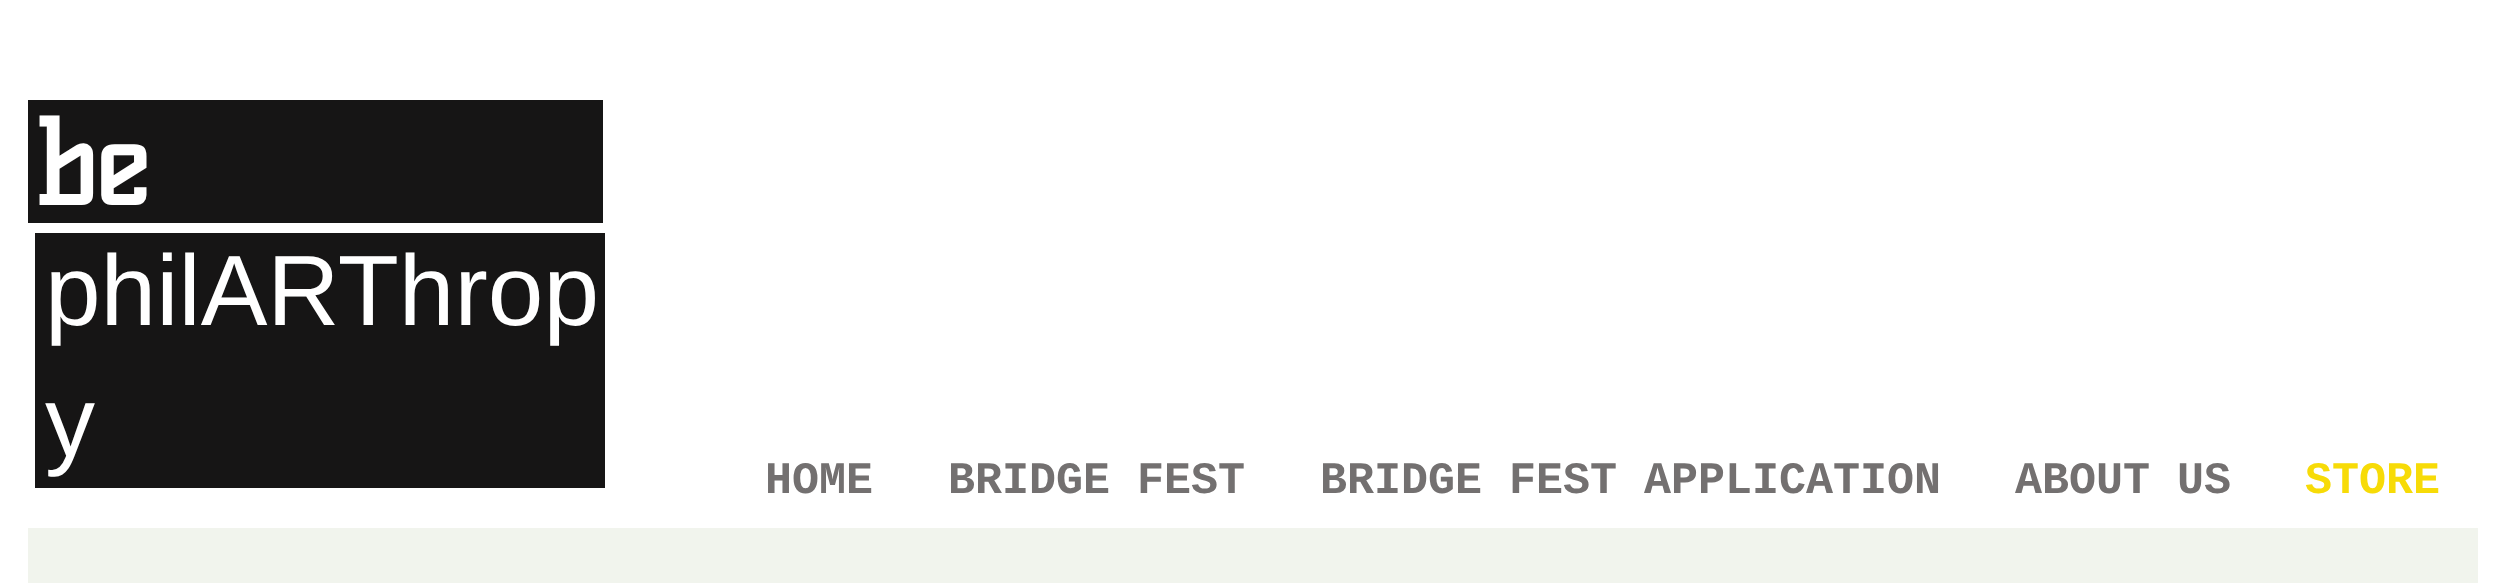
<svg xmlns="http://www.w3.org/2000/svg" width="2504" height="583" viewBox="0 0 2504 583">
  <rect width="100%" height="100%" fill="rgb(255,255,255)"/>
  <rect x="28" y="100" width="575" height="123" fill="rgb(22,21,21)"/>
  <text x="35" y="205" font-family="Kelly Slab" font-size="115" font-weight="bold" fill="rgb(255,255,255)">be</text>
  <rect x="35" y="233" width="570" height="255" fill="rgb(22,21,21)"/>
  <g font-family="Liberation Sans" font-size="100" fill="rgb(255,255,255)">
    <text>
      <tspan x="45" y="325">philARThrop</tspan>
      <tspan x="45" y="456">y</tspan>
    </text>
  </g>
  <g font-family="Liberation Mono" font-size="45" font-weight="bold" fill="rgb(115,112,112)">
    <text x="765" y="493">HOME</text>
    <text x="948" y="493">BRIDGE FEST</text>
    <text x="1320" y="493">BRIDGE FEST APPLICATION</text>
    <text x="2015" y="493">ABOUT US</text>
  </g>
  <text x="2305" y="493" font-family="Liberation Mono" font-size="45" font-weight="bold" fill="rgb(247,219,7)">STORE</text>
  <rect x="28" y="528" width="2450" height="55" fill="rgb(241,244,237)"/>
</svg>
